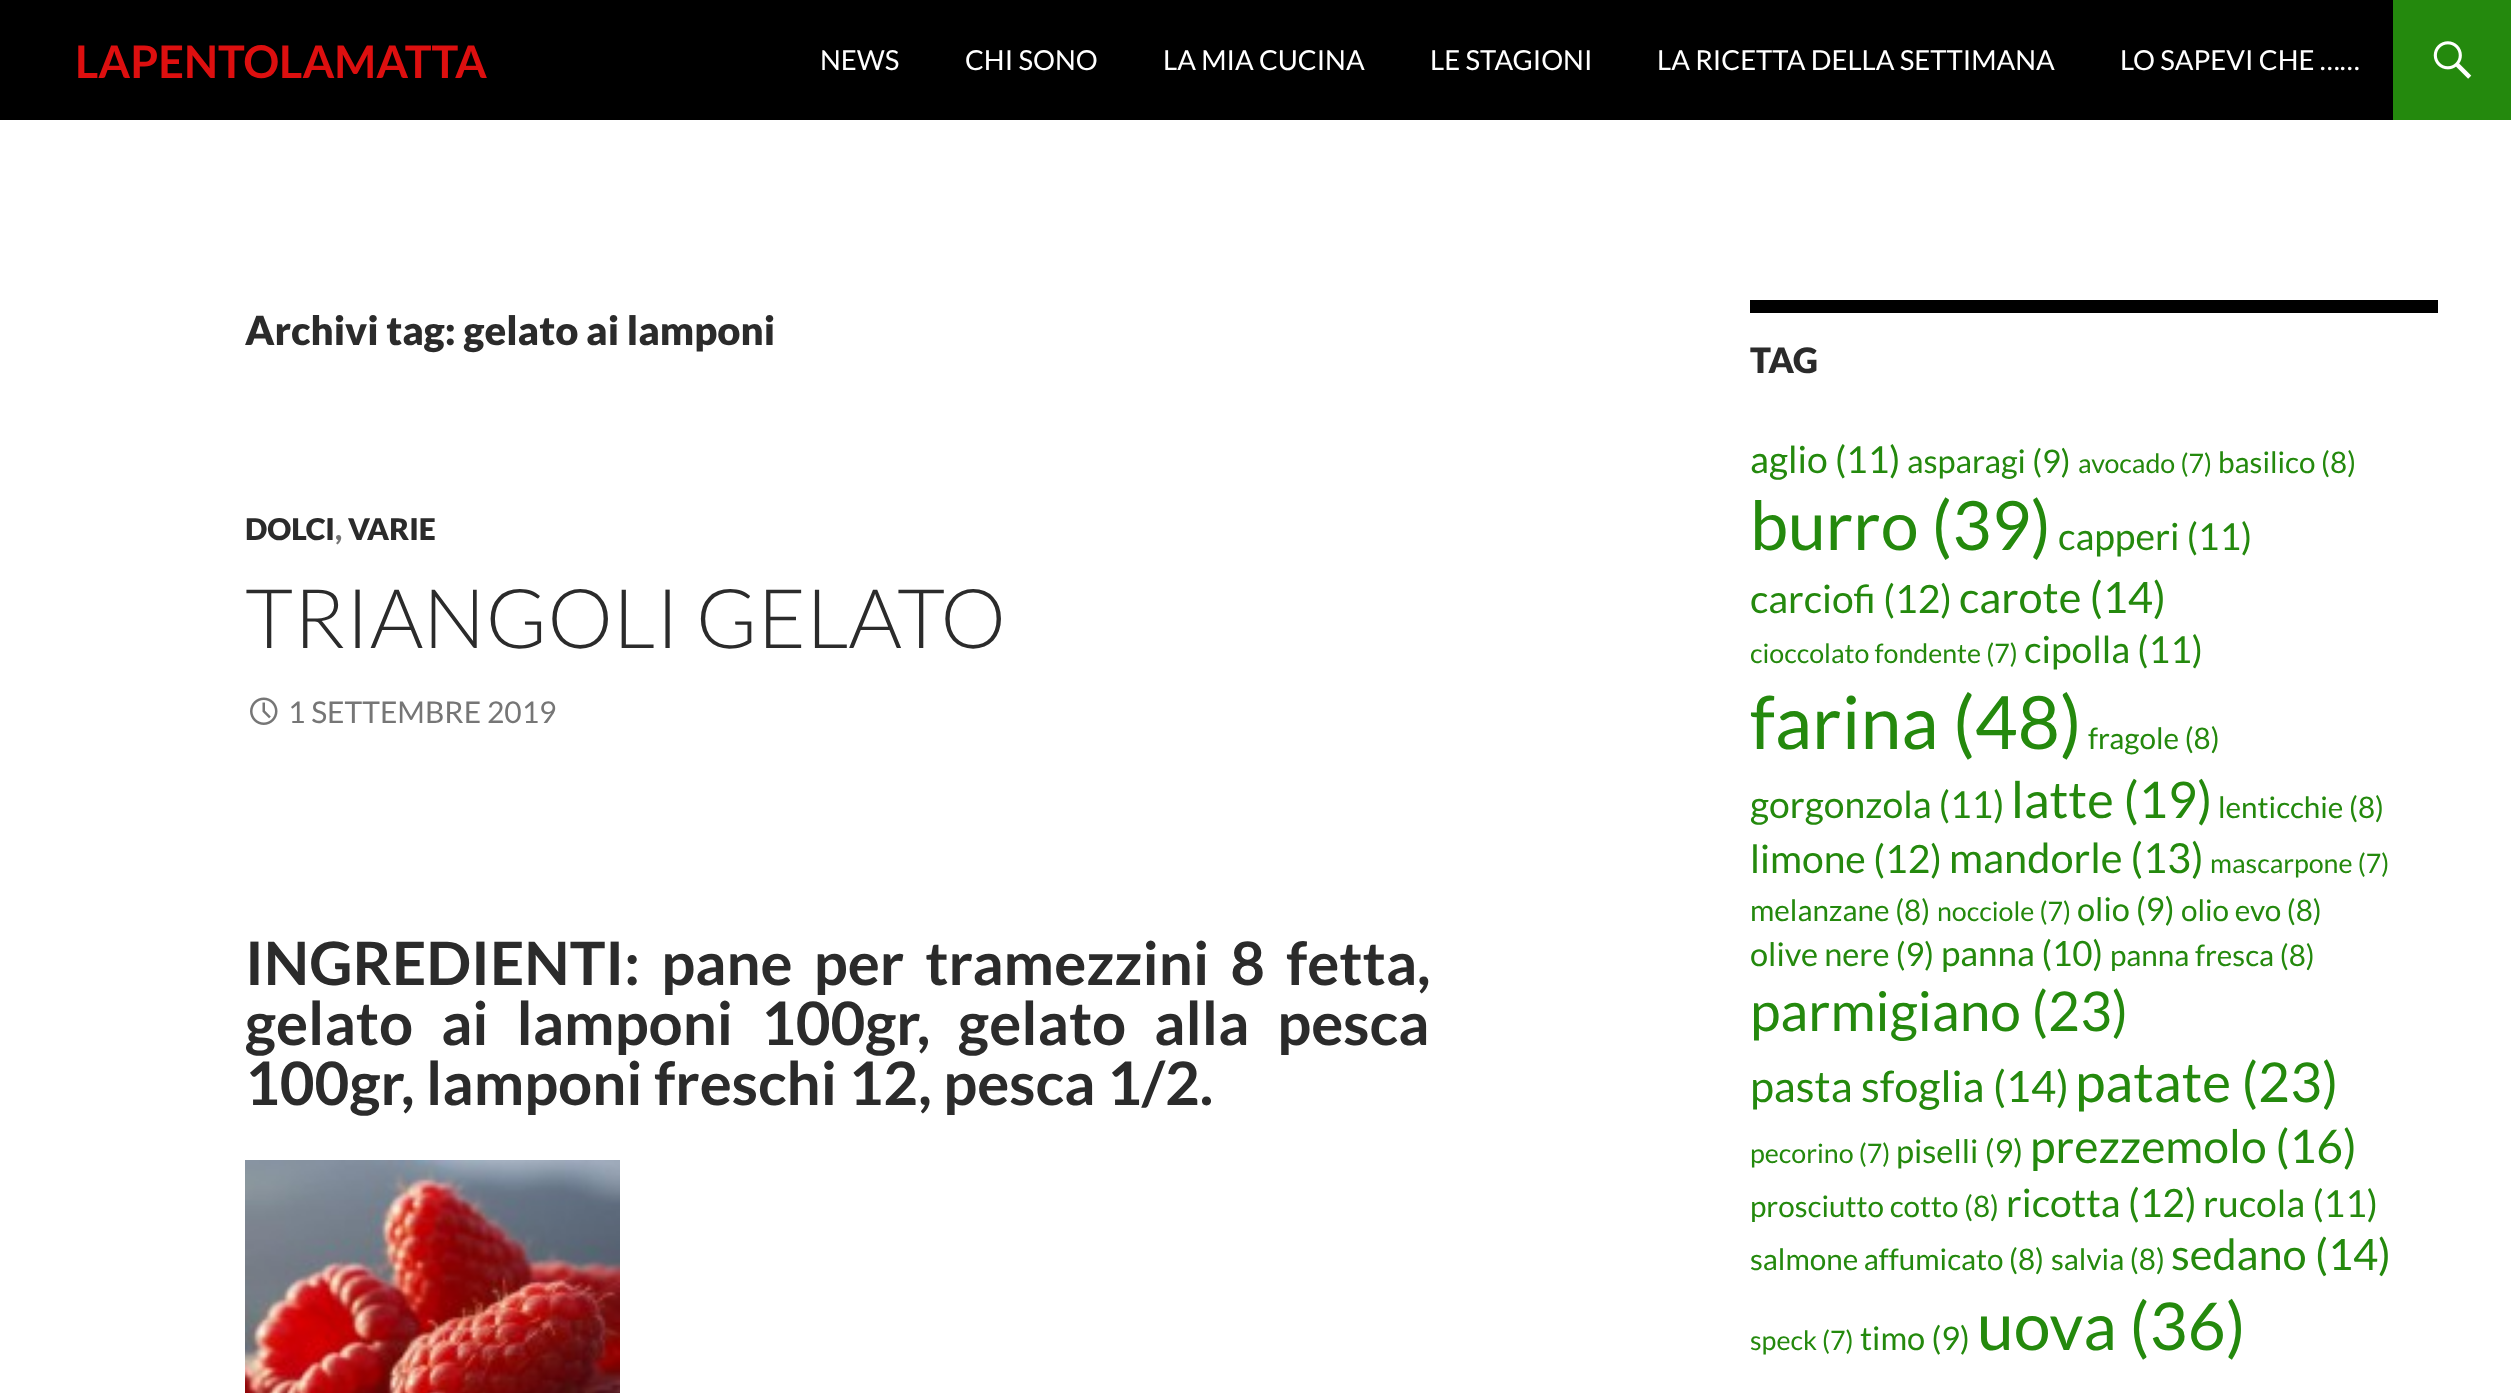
<svg xmlns="http://www.w3.org/2000/svg" width="2511" height="1393" viewBox="0 0 2511 1393">
  <rect width="100%" height="100%" fill="rgb(255,255,255)"/>
  <rect x="0" y="0" width="2393" height="120" fill="rgb(0,0,0)"/>
  <text x="75" y="78" font-family="Lato" font-size="45" font-weight="bold" fill="rgb(221,15,15)">LAPENTOLAMATTA</text>
  <g font-family="Lato" font-size="27.5" fill="rgb(255,255,255)">
    <text x="820" y="70">NEWS</text>
    <text x="965" y="70">CHI SONO</text>
    <text x="1163" y="70">LA MIA CUCINA</text>
    <text x="1430" y="70">LE STAGIONI</text>
    <text x="1657" y="70">LA RICETTA DELLA SETTIMANA</text>
    <text x="2120" y="70">LO SAPEVI CHE ……</text>
  </g>
  <rect x="2393" y="0" width="118" height="120" fill="rgb(36,137,13)"/>
  <image x="2433" y="41" width="39" height="38" href="pic1.png"/>
  <text x="245" y="345" font-family="Lato" font-size="40" font-weight="900" fill="rgb(43,43,43)">Archivi tag: gelato ai lamponi</text>
  <text x="245" y="540" font-family="Lato" font-size="30" font-weight="900" fill="rgb(43,43,43)">DOLCI</text>
  <text x="335" y="540" font-family="Lato" font-size="30" font-weight="900" fill="rgb(118,118,118)">,</text>
  <text x="348" y="540" font-family="Lato" font-size="30" font-weight="900" fill="rgb(43,43,43)">VARIE</text>
  <text x="245" y="648" font-family="Lato" font-size="82.5" font-weight="300" fill="rgb(43,43,43)">TRIANGOLI GELATO</text>
  <image x="250" y="697" width="28" height="28" href="pic2.png"/>
  <text x="288" y="723" font-family="Lato" font-size="30" fill="rgb(118,118,118)">1 SETTEMBRE 2019</text>
  <g font-family="Lato" font-size="60" font-weight="bold" fill="rgb(43,43,43)">
    <text>
      <tspan x="245" y="985" word-spacing="9.5">INGREDIENTI: pane per tramezzini 8 fetta,</tspan>
      <tspan x="245" y="1045" word-spacing="16.25">gelato ai lamponi 100gr, gelato alla pesca</tspan>
      <tspan x="245" y="1105">100gr, lamponi freschi 12, pesca 1/2.</tspan>
    </text>
  </g>
  <image x="245" y="1160" width="375" height="233" href="pic3.png"/>
  <rect x="1750" y="300" width="688" height="13" fill="rgb(0,0,0)"/>
  <text x="1750" y="373" font-family="Lato" font-size="35" font-weight="900" fill="rgb(43,43,43)">TAG</text>
  <text x="1750" y="473" font-family="Lato" font-size="37.25" fill="rgb(36,137,13)">aglio (11)</text>
  <text x="1907" y="473" font-family="Lato" font-size="32.5" fill="rgb(36,137,13)">asparagi (9)</text>
  <text x="2078" y="473" font-family="Lato" font-size="26.75" fill="rgb(36,137,13)">avocado (7)</text>
  <text x="2218" y="473" font-family="Lato" font-size="29.6" fill="rgb(36,137,13)">basilico (8)</text>
  <text x="1750" y="550" font-family="Lato" font-size="68" fill="rgb(36,137,13)">burro (39)</text>
  <text x="2058" y="550" font-family="Lato" font-size="37.25" fill="rgb(36,137,13)">capperi (11)</text>
  <text x="1750" y="613" font-family="Lato" font-size="39" fill="rgb(36,137,13)">carciofi (12)</text>
  <text x="1959" y="613" font-family="Lato" font-size="43.25" fill="rgb(36,137,13)">carote (14)</text>
  <text x="1750" y="663" font-family="Lato" font-size="26.75" fill="rgb(36,137,13)">cioccolato fondente (7)</text>
  <text x="2024" y="663" font-family="Lato" font-size="37.25" fill="rgb(36,137,13)">cipolla (11)</text>
  <text x="1750" y="749" font-family="Lato" font-size="73.5" fill="rgb(36,137,13)">farina (48)</text>
  <text x="2088" y="749" font-family="Lato" font-size="29.6" fill="rgb(36,137,13)">fragole (8)</text>
  <text x="1750" y="818" font-family="Lato" font-size="37.25" fill="rgb(36,137,13)">gorgonzola (11)</text>
  <text x="2011" y="818" font-family="Lato" font-size="50.5" fill="rgb(36,137,13)">latte (19)</text>
  <text x="2218" y="818" font-family="Lato" font-size="29.6" fill="rgb(36,137,13)">lenticchie (8)</text>
  <text x="1750" y="873" font-family="Lato" font-size="39" fill="rgb(36,137,13)">limone (12)</text>
  <text x="1949" y="873" font-family="Lato" font-size="41.5" fill="rgb(36,137,13)">mandorle (13)</text>
  <text x="2210" y="873" font-family="Lato" font-size="26.75" fill="rgb(36,137,13)">mascarpone (7)</text>
  <text x="1750" y="921" font-family="Lato" font-size="29.6" fill="rgb(36,137,13)">melanzane (8)</text>
  <text x="1937" y="921" font-family="Lato" font-size="26.75" fill="rgb(36,137,13)">nocciole (7)</text>
  <text x="2077" y="921" font-family="Lato" font-size="32.5" fill="rgb(36,137,13)">olio (9)</text>
  <text x="2181" y="921" font-family="Lato" font-size="29.6" fill="rgb(36,137,13)">olio evo (8)</text>
  <text x="1750" y="966" font-family="Lato" font-size="32.5" fill="rgb(36,137,13)">olive nere (9)</text>
  <text x="1941" y="966" font-family="Lato" font-size="35" fill="rgb(36,137,13)">panna (10)</text>
  <text x="2110" y="966" font-family="Lato" font-size="29.6" fill="rgb(36,137,13)">panna fresca (8)</text>
  <text x="1750" y="1031" font-family="Lato" font-size="55" fill="rgb(36,137,13)">parmigiano (23)</text>
  <text x="1750" y="1102" font-family="Lato" font-size="43.25" fill="rgb(36,137,13)">pasta sfoglia (14)</text>
  <text x="2075" y="1102" font-family="Lato" font-size="55" fill="rgb(36,137,13)">patate (23)</text>
  <text x="1750" y="1163" font-family="Lato" font-size="26.75" fill="rgb(36,137,13)">pecorino (7)</text>
  <text x="1896" y="1163" font-family="Lato" font-size="32.5" fill="rgb(36,137,13)">piselli (9)</text>
  <text x="2030" y="1163" font-family="Lato" font-size="46.25" fill="rgb(36,137,13)">prezzemolo (16)</text>
  <g font-family="Lato" font-size="29.6" fill="rgb(36,137,13)">
    <text x="1750" y="1217">prosciutto cotto</text>
    <text x="1964" y="1217">(8)</text>
  </g>
  <text x="2006" y="1217" font-family="Lato" font-size="39" fill="rgb(36,137,13)">ricotta (12)</text>
  <text x="2203" y="1217" font-family="Lato" font-size="37.25" fill="rgb(36,137,13)">rucola (11)</text>
  <g font-family="Lato" font-size="29.6" fill="rgb(36,137,13)">
    <text x="1750" y="1270">salmone affumicato</text>
    <text x="2009" y="1270">(8)</text>
    <text x="2051" y="1270">salvia (8)</text>
  </g>
  <text x="2171" y="1270" font-family="Lato" font-size="43.25" fill="rgb(36,137,13)">sedano (14)</text>
  <text x="1750" y="1350" font-family="Lato" font-size="26.75" fill="rgb(36,137,13)">speck (7)</text>
  <text x="1860" y="1350" font-family="Lato" font-size="32.5" fill="rgb(36,137,13)">timo (9)</text>
  <text x="1977" y="1350" font-family="Lato" font-size="66" fill="rgb(36,137,13)">uova (36)</text>
</svg>
